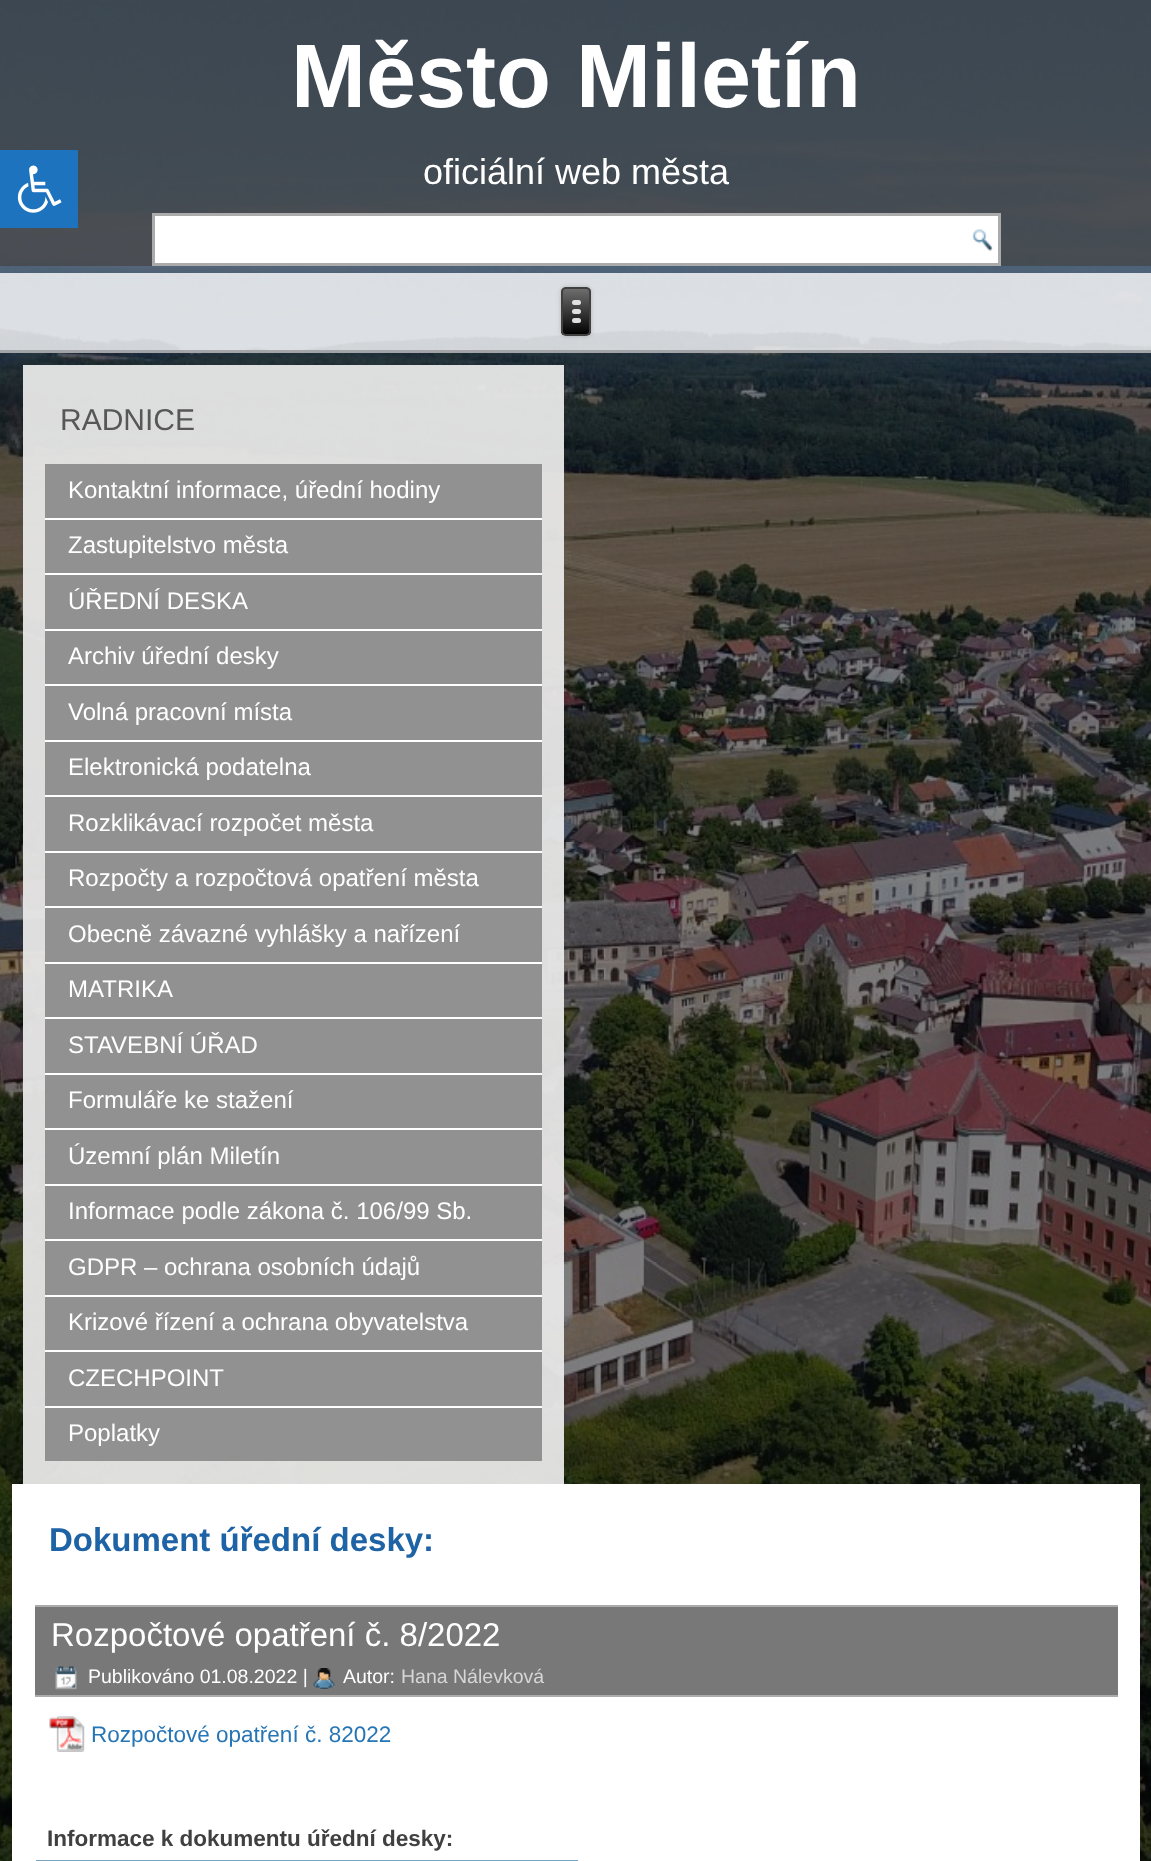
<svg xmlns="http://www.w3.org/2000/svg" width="1151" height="1861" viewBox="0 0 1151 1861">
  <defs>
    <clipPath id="clip1"><rect x="561" y="287" width="30" height="49" rx="5"/></clipPath>
    <linearGradient id="g1" gradientUnits="userSpaceOnUse" x1="576" y1="288" x2="576" y2="335"><stop offset="0" stop-color="rgb(112,112,112)"/><stop offset="1" stop-color="rgb(0,0,0)"/></linearGradient>
  </defs>
  <rect width="100%" height="100%" fill="rgb(255,255,255)"/>
  <image x="0" y="0" width="1151" height="1861" href="pic1.png"/>
  <rect x="0" y="0" width="1151" height="266" fill="rgba(67,67,67,0.7)"/>
  <rect x="0" y="150" width="78" height="78" fill="rgb(30,115,190)"/>
  <image x="17" y="165" width="45" height="48" href="pic2.png"/>
  <text x="291" y="107" font-family="Liberation Sans" font-size="90" font-weight="bold" fill="rgb(255,255,255)">Město Miletín</text>
  <text x="423" y="184" font-family="Liberation Sans" font-size="36" fill="rgb(255,255,255)">oficiální web města</text>
  <rect x="153.5" y="214.5" width="846" height="50" fill="rgb(255,255,255)" stroke="rgb(171,171,171)" stroke-width="3"/>
  <image x="972" y="229" width="21" height="22" href="pic3.png"/>
  <rect x="0" y="273" width="1151" height="80" fill="rgba(255,255,255,0.8)"/>
  <rect x="0" y="350" width="1151" height="3" fill="rgba(151,151,155,0.8)"/>
  <rect x="561" y="287" width="30" height="49" rx="5" fill="rgba(0,0,0,0.2)" filter="blur(2px)"/>
  <g clip-path="url(#clip1)">
    <rect x="561" y="288" width="30" height="47" fill="url(#g1)"/>
  </g>
  <rect x="562" y="288" width="28" height="47" rx="4" fill="none" stroke="rgb(64,64,64)" stroke-width="2"/>
  <rect x="572" y="300" width="9" height="5" rx="2.5" fill="rgb(224,224,224)"/>
  <rect x="572" y="309" width="9" height="5" rx="2.5" fill="rgb(224,224,224)"/>
  <rect x="572" y="318" width="9" height="5" rx="2.5" fill="rgb(224,224,224)"/>
  <rect x="23" y="365" width="541" height="1119" fill="rgba(232,232,232,0.95)"/>
  <text x="60" y="430" font-family="Liberation Sans" font-size="30" fill="rgb(87,87,87)">RADNICE</text>
  <rect x="45" y="464" width="497" height="54" fill="rgb(145,145,145)"/>
  <text x="68" y="498" font-family="Liberation Sans" font-size="24" fill="rgb(255,255,255)">Kontaktní informace, úřední hodiny</text>
  <rect x="45" y="518" width="497" height="2" fill="rgb(255,255,255)"/>
  <rect x="45" y="520" width="497" height="53" fill="rgb(145,145,145)"/>
  <text x="68" y="553" font-family="Liberation Sans" font-size="24" fill="rgb(255,255,255)">Zastupitelstvo města</text>
  <rect x="45" y="573" width="497" height="2" fill="rgb(255,255,255)"/>
  <rect x="45" y="575" width="497" height="54" fill="rgb(145,145,145)"/>
  <text x="68" y="609" font-family="Liberation Sans" font-size="24" fill="rgb(255,255,255)">ÚŘEDNÍ DESKA</text>
  <rect x="45" y="629" width="497" height="2" fill="rgb(255,255,255)"/>
  <rect x="45" y="631" width="497" height="53" fill="rgb(145,145,145)"/>
  <text x="68" y="664" font-family="Liberation Sans" font-size="24" fill="rgb(255,255,255)">Archiv úřední desky</text>
  <rect x="45" y="684" width="497" height="2" fill="rgb(255,255,255)"/>
  <rect x="45" y="686" width="497" height="54" fill="rgb(145,145,145)"/>
  <text x="68" y="720" font-family="Liberation Sans" font-size="24" fill="rgb(255,255,255)">Volná pracovní místa</text>
  <rect x="45" y="740" width="497" height="2" fill="rgb(255,255,255)"/>
  <rect x="45" y="742" width="497" height="53" fill="rgb(145,145,145)"/>
  <text x="68" y="775" font-family="Liberation Sans" font-size="24" fill="rgb(255,255,255)">Elektronická podatelna</text>
  <rect x="45" y="795" width="497" height="2" fill="rgb(255,255,255)"/>
  <rect x="45" y="797" width="497" height="54" fill="rgb(145,145,145)"/>
  <text x="68" y="831" font-family="Liberation Sans" font-size="24" fill="rgb(255,255,255)">Rozklikávací rozpočet města</text>
  <rect x="45" y="851" width="497" height="2" fill="rgb(255,255,255)"/>
  <rect x="45" y="853" width="497" height="53" fill="rgb(145,145,145)"/>
  <text x="68" y="886" font-family="Liberation Sans" font-size="24" fill="rgb(255,255,255)">Rozpočty a rozpočtová opatření města</text>
  <rect x="45" y="906" width="497" height="2" fill="rgb(255,255,255)"/>
  <rect x="45" y="908" width="497" height="54" fill="rgb(145,145,145)"/>
  <text x="68" y="942" font-family="Liberation Sans" font-size="24" fill="rgb(255,255,255)">Obecně závazné vyhlášky a nařízení</text>
  <rect x="45" y="962" width="497" height="2" fill="rgb(255,255,255)"/>
  <rect x="45" y="964" width="497" height="53" fill="rgb(145,145,145)"/>
  <text x="68" y="997" font-family="Liberation Sans" font-size="24" fill="rgb(255,255,255)">MATRIKA</text>
  <rect x="45" y="1017" width="497" height="2" fill="rgb(255,255,255)"/>
  <rect x="45" y="1019" width="497" height="54" fill="rgb(145,145,145)"/>
  <text x="68" y="1053" font-family="Liberation Sans" font-size="24" fill="rgb(255,255,255)">STAVEBNÍ ÚŘAD</text>
  <rect x="45" y="1073" width="497" height="2" fill="rgb(255,255,255)"/>
  <rect x="45" y="1075" width="497" height="53" fill="rgb(145,145,145)"/>
  <text x="68" y="1108" font-family="Liberation Sans" font-size="24" fill="rgb(255,255,255)">Formuláře ke stažení</text>
  <rect x="45" y="1128" width="497" height="2" fill="rgb(255,255,255)"/>
  <rect x="45" y="1130" width="497" height="54" fill="rgb(145,145,145)"/>
  <text x="68" y="1164" font-family="Liberation Sans" font-size="24" fill="rgb(255,255,255)">Územní plán Miletín</text>
  <rect x="45" y="1184" width="497" height="2" fill="rgb(255,255,255)"/>
  <rect x="45" y="1186" width="497" height="53" fill="rgb(145,145,145)"/>
  <text x="68" y="1219" font-family="Liberation Sans" font-size="24" fill="rgb(255,255,255)">Informace podle zákona č. 106/99 Sb.</text>
  <rect x="45" y="1239" width="497" height="2" fill="rgb(255,255,255)"/>
  <rect x="45" y="1241" width="497" height="54" fill="rgb(145,145,145)"/>
  <text x="68" y="1275" font-family="Liberation Sans" font-size="24" fill="rgb(255,255,255)">GDPR – ochrana osobních údajů</text>
  <rect x="45" y="1295" width="497" height="2" fill="rgb(255,255,255)"/>
  <rect x="45" y="1297" width="497" height="53" fill="rgb(145,145,145)"/>
  <text x="68" y="1330" font-family="Liberation Sans" font-size="24" fill="rgb(255,255,255)">Krizové řízení a ochrana obyvatelstva</text>
  <rect x="45" y="1350" width="497" height="2" fill="rgb(255,255,255)"/>
  <rect x="45" y="1352" width="497" height="54" fill="rgb(145,145,145)"/>
  <text x="68" y="1386" font-family="Liberation Sans" font-size="24" fill="rgb(255,255,255)">CZECHPOINT</text>
  <rect x="45" y="1406" width="497" height="2" fill="rgb(255,255,255)"/>
  <rect x="45" y="1408" width="497" height="53" fill="rgb(145,145,145)"/>
  <text x="68" y="1441" font-family="Liberation Sans" font-size="24" fill="rgb(255,255,255)">Poplatky</text>
  <rect x="12" y="1484" width="1128" height="377" fill="rgb(255,255,255)"/>
  <text x="49" y="1551" font-family="Liberation Sans" font-size="33" font-weight="bold" fill="rgb(29,99,165)">Dokument úřední desky:</text>
  <rect x="35" y="1607" width="1083" height="88" fill="rgb(120,120,120)"/>
  <rect x="35" y="1605" width="1083" height="2" fill="rgb(171,171,171)"/>
  <rect x="35" y="1695" width="1083" height="2" fill="rgb(171,171,171)"/>
  <text x="51" y="1646" font-family="Liberation Sans" font-size="33" fill="rgb(255,255,255)">Rozpočtové opatření č. 8/2022</text>
  <image x="55" y="1666" width="22" height="24" href="pic4.png"/>
  <text x="88" y="1683" font-family="Liberation Sans" font-size="19.5" fill="rgb(255,255,255)">Publikováno 01.08.2022 |</text>
  <image x="313" y="1668" width="22" height="21" href="pic5.png"/>
  <text x="343" y="1683" font-family="Liberation Sans" font-size="19.5" fill="rgb(255,255,255)">Autor:</text>
  <text x="401" y="1683" font-family="Liberation Sans" font-size="19.5" fill="rgb(214,214,214)">Hana Nálevková</text>
  <image x="49" y="1716" width="36" height="36" href="pic6.png"/>
  <text x="91" y="1742" font-family="Liberation Sans" font-size="22.5" fill="rgb(38,117,181)">Rozpočtové opatření č. 82022</text>
  <text x="47" y="1846" font-family="Liberation Sans" font-size="22.5" font-weight="bold" fill="rgb(64,64,64)">Informace k dokumentu úřední desky:</text>
  <rect x="36" y="1860" width="542" height="1" fill="rgb(121,165,195)"/>
</svg>
